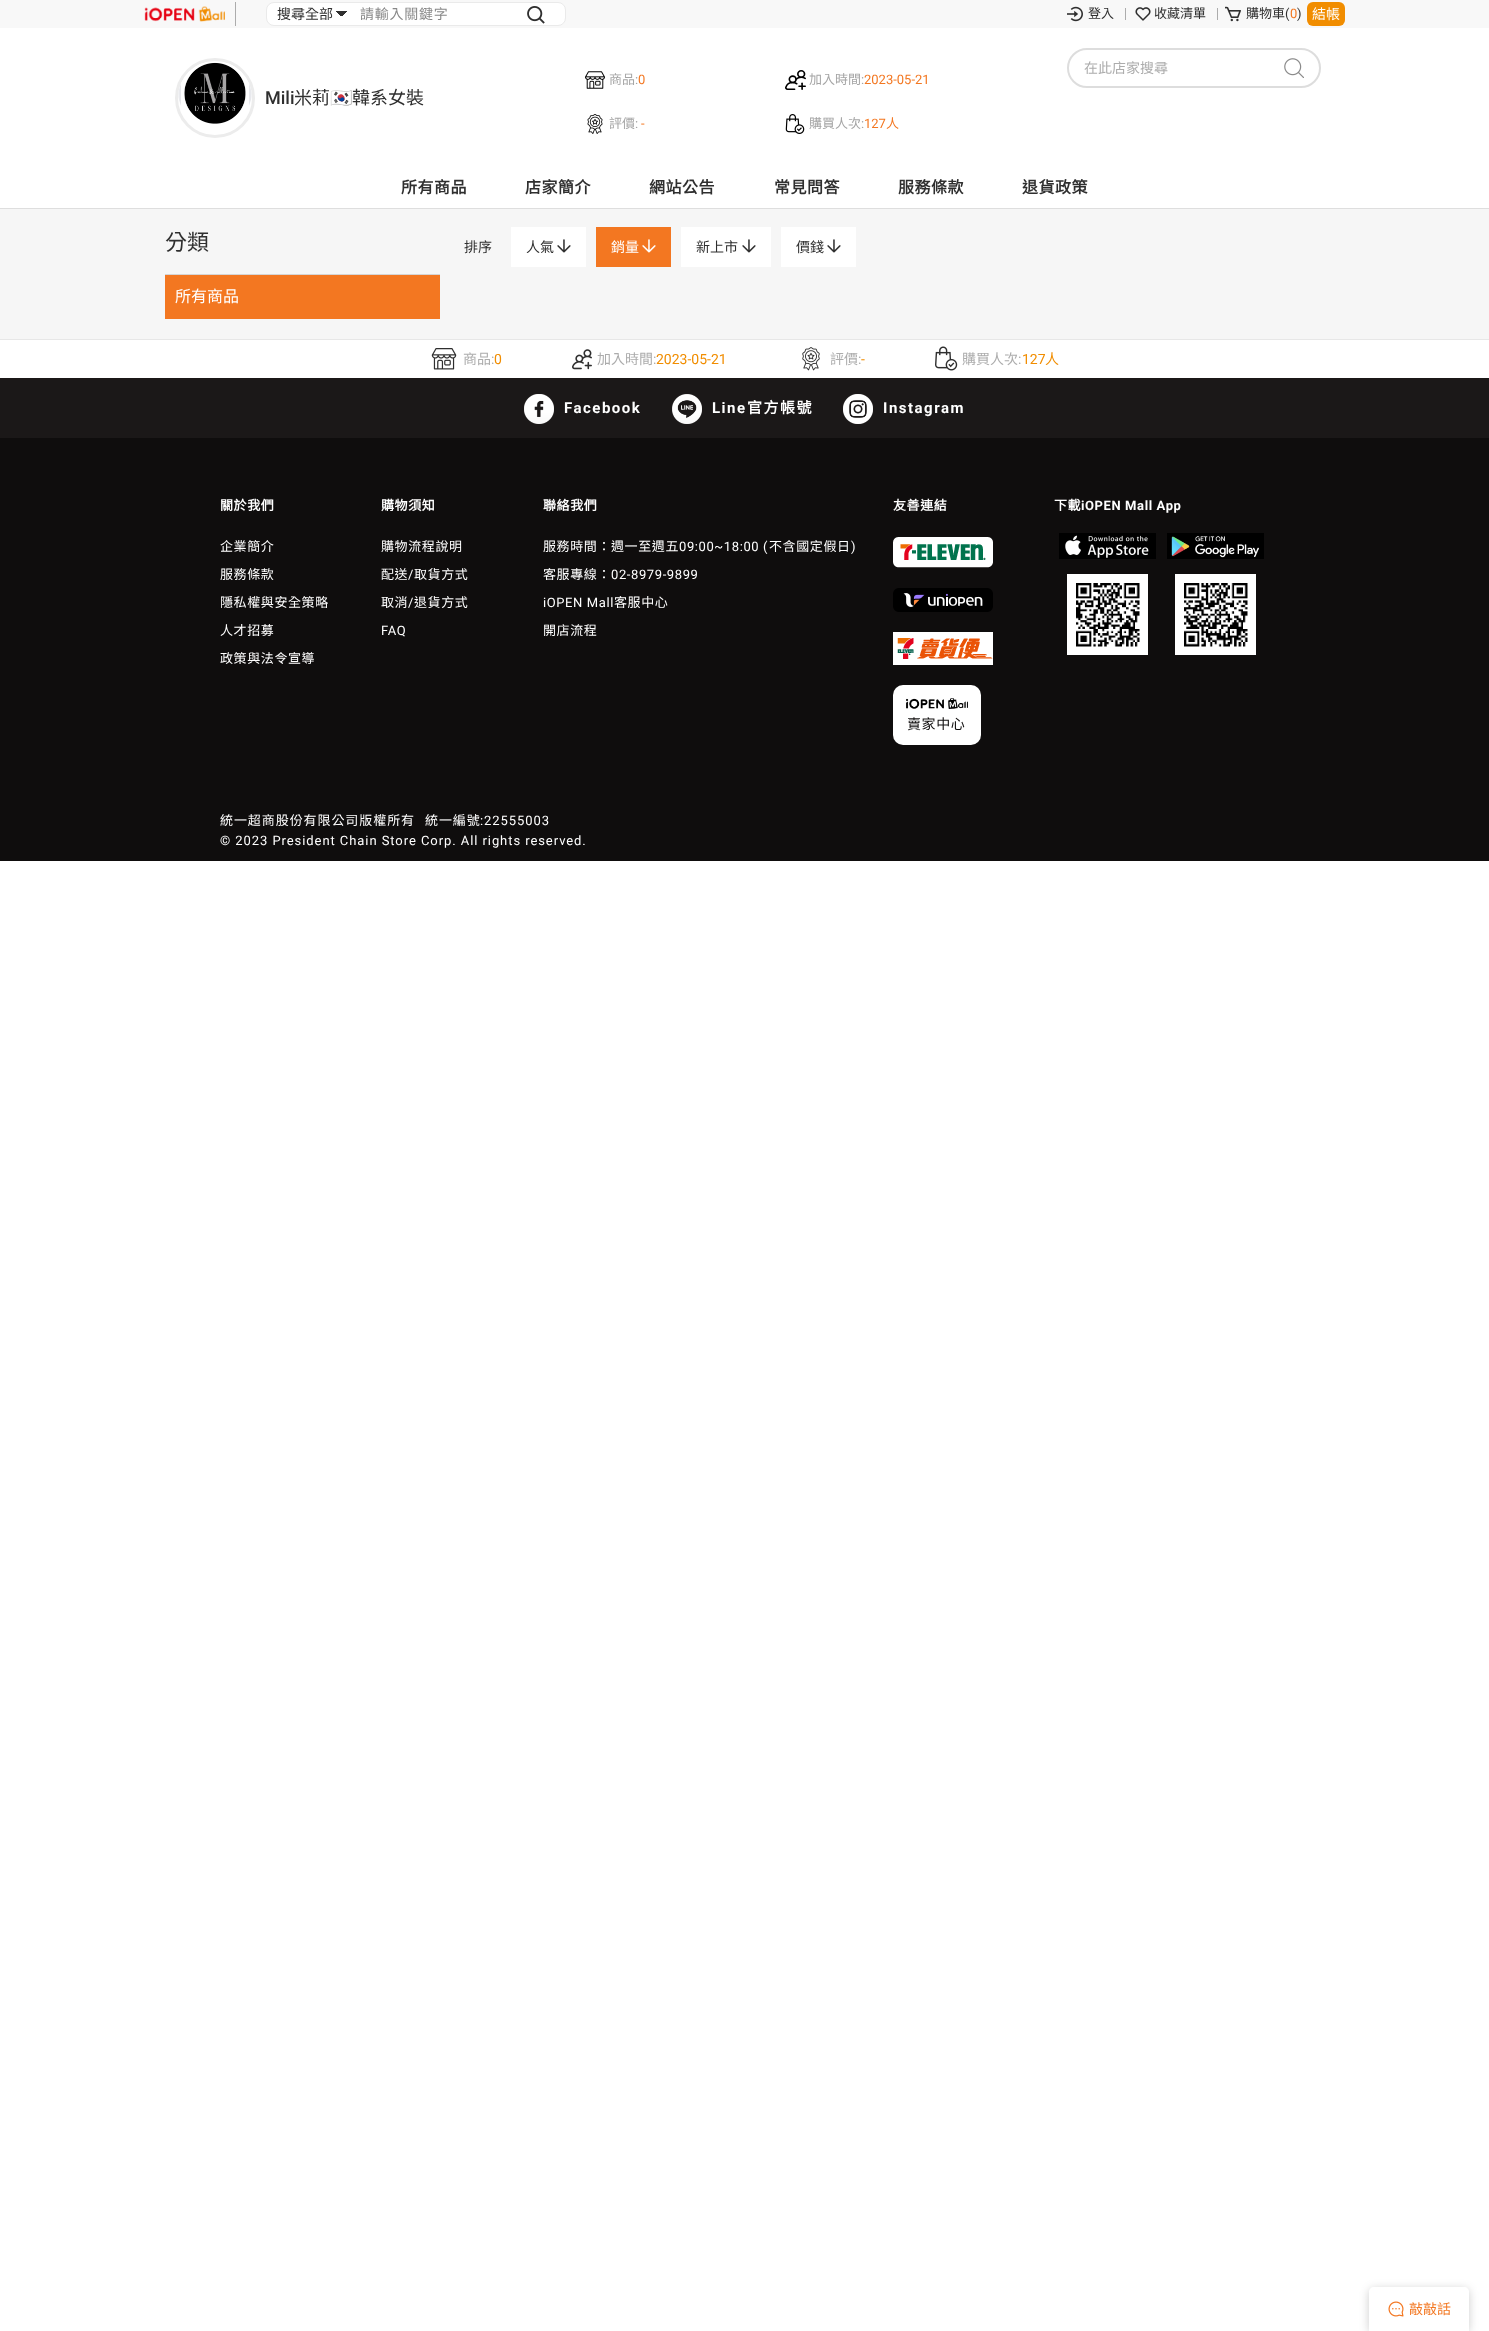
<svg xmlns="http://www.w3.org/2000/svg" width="1489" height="2331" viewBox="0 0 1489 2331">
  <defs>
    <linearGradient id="g1" gradientUnits="userSpaceOnUse" x1="341" y1="11" x2="347" y2="17"><stop offset="0.5" stop-color="rgb(47,47,47)"/><stop offset="0.5" stop-color="rgb(255,255,255)"/></linearGradient>
    <linearGradient id="g2" gradientUnits="userSpaceOnUse" x1="335" y1="17" x2="341" y2="11"><stop offset="0.5" stop-color="rgb(255,255,255)"/><stop offset="0.5" stop-color="rgb(47,47,47)"/></linearGradient>
  </defs>
  <rect width="100%" height="100%" fill="rgb(255,255,255)"/>
  <rect x="0" y="0" width="1489" height="28" fill="rgb(248,248,248)"/>
  <rect x="235" y="2" width="1" height="24" fill="rgb(172,172,172)"/>
  <image x="144" y="6" width="81" height="16" href="pic1.png"/>
  <rect x="266.5" y="2.5" width="299" height="23" rx="7.5" fill="rgb(255,255,255)" stroke="rgb(234,234,234)"/>
  <rect x="341" y="11" width="6" height="5" fill="url(#g1)"/>
  <rect x="335" y="11" width="6" height="5" fill="url(#g2)"/>
  <text x="277" y="19" font-family="Noto Sans CJK TC" font-size="14" fill="rgb(47,47,47)">搜尋全部</text>
  <text x="360" y="19" font-family="Noto Sans CJK TC" font-size="14" letter-spacing="0.75" fill="rgb(136,136,136)">請輸入關鍵字</text>
  <image x="527" y="6" width="18" height="18" href="pic2.png"/>
  <image x="1067" y="6" width="16" height="16" href="pic3.png"/>
  <text x="1088" y="18" font-family="Noto Sans CJK TC" font-size="13" fill="rgb(47,47,47)">登入</text>
  <rect x="1125" y="8" width="1" height="12" fill="rgb(172,172,172)"/>
  <image x="1135" y="7" width="16" height="14" href="pic4.png"/>
  <text x="1154" y="18" font-family="Noto Sans CJK TC" font-size="13" fill="rgb(47,47,47)">收藏清單</text>
  <rect x="1217" y="8" width="1" height="12" fill="rgb(172,172,172)"/>
  <image x="1225" y="6" width="16" height="16" href="pic5.png"/>
  <text x="1246" y="18" font-family="Noto Sans CJK TC" font-size="13" fill="rgb(47,47,47)">購物車</text>
  <text x="1285" y="18" font-family="Roboto" font-size="13" fill="rgb(47,47,47)">(</text>
  <text x="1290" y="18" font-family="Roboto" font-size="13" fill="rgb(243,119,33)">0</text>
  <text x="1297" y="18" font-family="Roboto" font-size="13" fill="rgb(47,47,47)">)</text>
  <rect x="1307" y="2" width="38" height="24" rx="6" fill="rgb(241,141,0)"/>
  <text x="1312" y="19" font-family="Noto Sans CJK TC" font-size="14" fill="rgb(255,255,255)">結帳</text>
  <rect x="0" y="209" width="1489" height="130" fill="rgb(246,246,246)"/>
  <rect x="0" y="208" width="1489" height="1" fill="rgb(222,222,222)"/>
  <circle cx="215" cy="98" r="38.5" fill="none" stroke="rgb(236,236,236)" stroke-width="3"/>
  <image x="178" y="62" width="74" height="62" href="pic6.png"/>
  <rect x="1068" y="49" width="252" height="38" rx="19" fill="none" stroke="rgb(221,221,221)" stroke-width="2"/>
  <text x="1084" y="73" font-family="Noto Sans CJK TC" font-size="14" fill="rgb(172,172,172)">在此店家搜尋</text>
  <image x="1284" y="58" width="20" height="20" href="pic7.png"/>
  <text x="265" y="104" font-family="Roboto" font-size="18" font-weight="500" fill="rgb(47,47,47)">Mili</text>
  <text x="294" y="104" font-family="Noto Sans CJK TC" font-size="18" fill="rgb(47,47,47)">米莉</text>
  <text x="330" y="104" font-family="Noto Color Emoji" font-size="18" fill="rgb(47,47,47)">🇰🇷</text>
  <text x="352" y="104" font-family="Noto Sans CJK TC" font-size="18" fill="rgb(47,47,47)">韓系女裝</text>
  <image x="585" y="71" width="20" height="18" href="pic8.png"/>
  <text x="609" y="84" font-family="Noto Sans CJK TC" font-size="13" fill="rgb(165,165,165)">商品</text>
  <text x="635" y="84" font-family="Roboto" font-size="13" fill="rgb(165,165,165)">:</text>
  <text x="638" y="84" font-family="Roboto" font-size="13" fill="rgb(243,119,33)">0</text>
  <image x="785" y="70" width="21" height="20" href="pic9.png"/>
  <text x="809" y="84" font-family="Noto Sans CJK TC" font-size="13" fill="rgb(165,165,165)">加入時間</text>
  <text x="861" y="84" font-family="Roboto" font-size="13" fill="rgb(165,165,165)">:</text>
  <text x="864" y="84" font-family="Roboto" font-size="13" fill="rgb(243,119,33)">2023-05-21</text>
  <image x="587" y="114" width="16" height="20" href="pic10.png"/>
  <text x="609" y="128" font-family="Noto Sans CJK TC" font-size="13" fill="rgb(165,165,165)">評價</text>
  <text x="635" y="128" font-family="Roboto" font-size="13" fill="rgb(165,165,165)">:</text>
  <text x="641" y="128" font-family="Roboto" font-size="13" fill="rgb(243,119,33)">-</text>
  <image x="785" y="114" width="20" height="20" href="pic11.png"/>
  <text x="809" y="128" font-family="Noto Sans CJK TC" font-size="13" fill="rgb(165,165,165)">購買人次</text>
  <text x="861" y="128" font-family="Roboto" font-size="13" fill="rgb(165,165,165)">:</text>
  <text x="864" y="128" font-family="Roboto" font-size="13" fill="rgb(243,119,33)">127</text>
  <text x="886" y="128" font-family="Noto Sans CJK TC" font-size="13" fill="rgb(243,119,33)">人</text>
  <g font-family="Noto Sans CJK TC" font-size="16" font-weight="bold" letter-spacing="0.5" fill="rgb(47,47,47)">
    <text x="401" y="193">所有商品</text>
    <text x="525" y="193">店家簡介</text>
    <text x="649" y="193">網站公告</text>
    <text x="774" y="193">常見問答</text>
    <text x="898" y="193">服務條款</text>
    <text x="1022" y="193">退貨政策</text>
  </g>
  <text x="165" y="250" font-family="Noto Sans CJK TC" font-size="22" fill="rgb(47,47,47)">分類</text>
  <rect x="165" y="275" width="275" height="44" fill="rgb(243,119,33)"/>
  <rect x="165" y="274" width="275" height="1" fill="rgb(213,213,213)"/>
  <text x="175" y="302" font-family="Noto Sans CJK TC" font-size="16" fill="rgb(255,255,255)">所有商品</text>
  <text x="464" y="252" font-family="Noto Sans CJK TC" font-size="14" fill="rgb(47,47,47)">排序</text>
  <rect x="511" y="227" width="75" height="40" fill="rgb(255,255,255)"/>
  <text x="526" y="252" font-family="Noto Sans CJK TC" font-size="14" fill="rgb(47,47,47)">人氣</text>
  <image x="557" y="239" width="14" height="14" href="pic12.png"/>
  <rect x="596" y="227" width="75" height="40" fill="rgb(243,119,33)"/>
  <text x="611" y="252" font-family="Noto Sans CJK TC" font-size="14" fill="rgb(255,255,255)">銷量</text>
  <image x="642" y="239" width="14" height="14" href="pic13.png"/>
  <rect x="681" y="227" width="90" height="40" fill="rgb(255,255,255)"/>
  <text x="696" y="252" font-family="Noto Sans CJK TC" font-size="14" fill="rgb(47,47,47)">新上市</text>
  <image x="742" y="239" width="14" height="14" href="pic12.png"/>
  <rect x="781" y="227" width="75" height="40" fill="rgb(255,255,255)"/>
  <text x="796" y="252" font-family="Noto Sans CJK TC" font-size="14" fill="rgb(47,47,47)">價錢</text>
  <image x="827" y="239" width="14" height="14" href="pic12.png"/>
  <rect x="0" y="438" width="1489" height="423" fill="rgb(15,13,13)"/>
  <rect x="0" y="339" width="1489" height="1" fill="rgb(231,231,231)"/>
  <image x="431" y="348" width="26" height="22" href="pic14.png"/>
  <text x="463" y="364" font-family="Noto Sans CJK TC" font-size="14" fill="rgb(172,172,172)">商品</text>
  <text x="491" y="364" font-family="Roboto" font-size="14" fill="rgb(172,172,172)">:</text>
  <text x="494" y="364" font-family="Roboto" font-size="14" fill="rgb(241,141,0)">0</text>
  <image x="572" y="349" width="20" height="21" href="pic15.png"/>
  <text x="597" y="364" font-family="Noto Sans CJK TC" font-size="14" fill="rgb(172,172,172)">加入時間</text>
  <text x="653" y="364" font-family="Roboto" font-size="14" fill="rgb(172,172,172)">:</text>
  <text x="656" y="364" font-family="Roboto" font-size="14" fill="rgb(241,141,0)">2023-05-21</text>
  <image x="802" y="347" width="18" height="24" href="pic16.png"/>
  <text x="830" y="364" font-family="Noto Sans CJK TC" font-size="14" fill="rgb(172,172,172)">評價</text>
  <text x="858" y="364" font-family="Roboto" font-size="14" fill="rgb(172,172,172)">:</text>
  <text x="861" y="364" font-family="Roboto" font-size="14" fill="rgb(241,141,0)">-</text>
  <image x="935" y="346" width="23" height="25" href="pic17.png"/>
  <text x="962" y="364" font-family="Noto Sans CJK TC" font-size="14" fill="rgb(172,172,172)">購買人次</text>
  <text x="1018" y="364" font-family="Roboto" font-size="14" fill="rgb(172,172,172)">:</text>
  <text x="1022" y="364" font-family="Roboto" font-size="14" fill="rgb(241,141,0)">127</text>
  <text x="1045" y="364" font-family="Noto Sans CJK TC" font-size="14" fill="rgb(241,141,0)">人</text>
  <rect x="0" y="378" width="1489" height="60" fill="rgb(27,24,24)"/>
  <image x="524" y="394" width="30" height="30" href="pic18.png"/>
  <text x="564" y="413" font-family="Roboto" font-size="15" font-weight="bold" letter-spacing="1.5" fill="rgb(255,255,255)">Facebook</text>
  <image x="672" y="394" width="30" height="30" href="pic19.png"/>
  <text x="712" y="413" font-family="Roboto" font-size="15" font-weight="bold" letter-spacing="1.5" fill="rgb(255,255,255)">Line</text>
  <text x="747" y="413" font-family="Noto Sans CJK TC" font-size="15" font-weight="bold" letter-spacing="1.5" fill="rgb(255,255,255)">官方帳號</text>
  <image x="843" y="394" width="30" height="30" href="pic20.png"/>
  <text x="883" y="413" font-family="Roboto" font-size="15" font-weight="bold" letter-spacing="1.5" fill="rgb(255,255,255)">Instagram</text>
  <g font-family="Noto Sans CJK TC" font-size="13" font-weight="bold" letter-spacing="0.6" fill="rgb(255,255,255)">
    <text x="220" y="510">關於我們</text>
    <text x="381" y="510">購物須知</text>
    <text x="543" y="510">聯絡我們</text>
    <text x="893" y="510">友善連結</text>
    <text x="1054" y="510">下載</text>
  </g>
  <text x="1081" y="510" font-family="Roboto" font-size="13" font-weight="bold" letter-spacing="0.6" fill="rgb(255,255,255)">iOPEN Mall App</text>
  <g font-family="Noto Sans CJK TC" font-size="13" letter-spacing="0.6" fill="rgb(255,255,255)">
    <text x="220" y="551">企業簡介</text>
    <text x="220" y="579">服務條款</text>
    <text x="220" y="607">隱私權與安全策略</text>
    <text x="220" y="635">人才招募</text>
    <text x="220" y="663">政策與法令宣導</text>
    <text x="381" y="551">購物流程說明</text>
    <text x="381" y="579">配送</text>
  </g>
  <text x="408" y="579" font-family="Roboto" font-size="13" letter-spacing="0.6" fill="rgb(255,255,255)">/</text>
  <g font-family="Noto Sans CJK TC" font-size="13" letter-spacing="0.6" fill="rgb(255,255,255)">
    <text x="414" y="579">取貨方式</text>
    <text x="381" y="607">取消</text>
  </g>
  <text x="408" y="607" font-family="Roboto" font-size="13" letter-spacing="0.6" fill="rgb(255,255,255)">/</text>
  <text x="414" y="607" font-family="Noto Sans CJK TC" font-size="13" letter-spacing="0.6" fill="rgb(255,255,255)">退貨方式</text>
  <text x="381" y="635" font-family="Roboto" font-size="13" letter-spacing="0.6" fill="rgb(255,255,255)">FAQ</text>
  <text x="543" y="551" font-family="Noto Sans CJK TC" font-size="13" letter-spacing="0.6" fill="rgb(255,255,255)">服務時間：週一至週五</text>
  <text x="679" y="551" font-family="Roboto" font-size="13" letter-spacing="0.6" fill="rgb(255,255,255)">09:00~18:00 (</text>
  <text x="769" y="551" font-family="Noto Sans CJK TC" font-size="13" letter-spacing="0.6" fill="rgb(255,255,255)">不含國定假日</text>
  <text x="851" y="551" font-family="Roboto" font-size="13" letter-spacing="0.6" fill="rgb(255,255,255)">)</text>
  <text x="543" y="579" font-family="Noto Sans CJK TC" font-size="13" letter-spacing="0.6" fill="rgb(255,255,255)">客服專線：</text>
  <g font-family="Roboto" font-size="13" letter-spacing="0.6" fill="rgb(255,255,255)">
    <text x="611" y="579">02-8979-9899</text>
    <text x="543" y="607">iOPEN Mall</text>
  </g>
  <g font-family="Noto Sans CJK TC" font-size="13" letter-spacing="0.6" fill="rgb(255,255,255)">
    <text x="614" y="607">客服中心</text>
    <text x="543" y="635">開店流程</text>
  </g>
  <image x="1059" y="533" width="97" height="26" href="pic21.png"/>
  <image x="1067" y="574" width="81" height="81" href="pic22.png"/>
  <image x="1167" y="533" width="97" height="26" href="pic23.png"/>
  <image x="1175" y="574" width="81" height="81" href="pic24.png"/>
  <image x="893" y="537" width="100" height="31" href="pic25.png"/>
  <image x="893" y="588" width="100" height="24" href="pic26.png"/>
  <image x="893" y="632" width="100" height="33" href="pic27.png"/>
  <rect x="893" y="685" width="88" height="60" rx="10" fill="rgb(255,255,255)"/>
  <image x="906" y="698" width="62" height="11" href="pic28.png"/>
  <text x="907" y="729" font-family="Noto Sans CJK TC" font-size="14" letter-spacing="0.6" fill="rgb(15,13,13)">賣家中心</text>
  <g font-family="Noto Sans CJK TC" font-size="13" letter-spacing="0.93" fill="rgb(255,255,255)">
    <text x="220" y="825">統一超商股份有限公司版權所有</text>
    <text x="425" y="825">統一編號</text>
  </g>
  <g font-family="Roboto" font-size="13" letter-spacing="0.93" fill="rgb(255,255,255)">
    <text x="480" y="825">:22555003</text>
    <text x="220" y="845">© 2023 President Chain Store Corp. All rights reserved.</text>
  </g>
  <rect x="1369" y="2289" width="100" height="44" rx="5" fill="rgba(0,0,0,0.2)" filter="blur(5px)"/>
  <path d="M1374 2287H1464C1467 2287 1469 2289 1469 2292V2331H1369V2292C1369 2289 1371 2287 1374 2287Z" fill="rgb(255,255,255)"/>
  <image x="1388" y="2301" width="16" height="16" href="pic29.png"/>
  <text x="1409" y="2314" font-family="Noto Sans CJK TC" font-size="14" fill="rgb(243,119,33)">敲敲話</text>
</svg>
